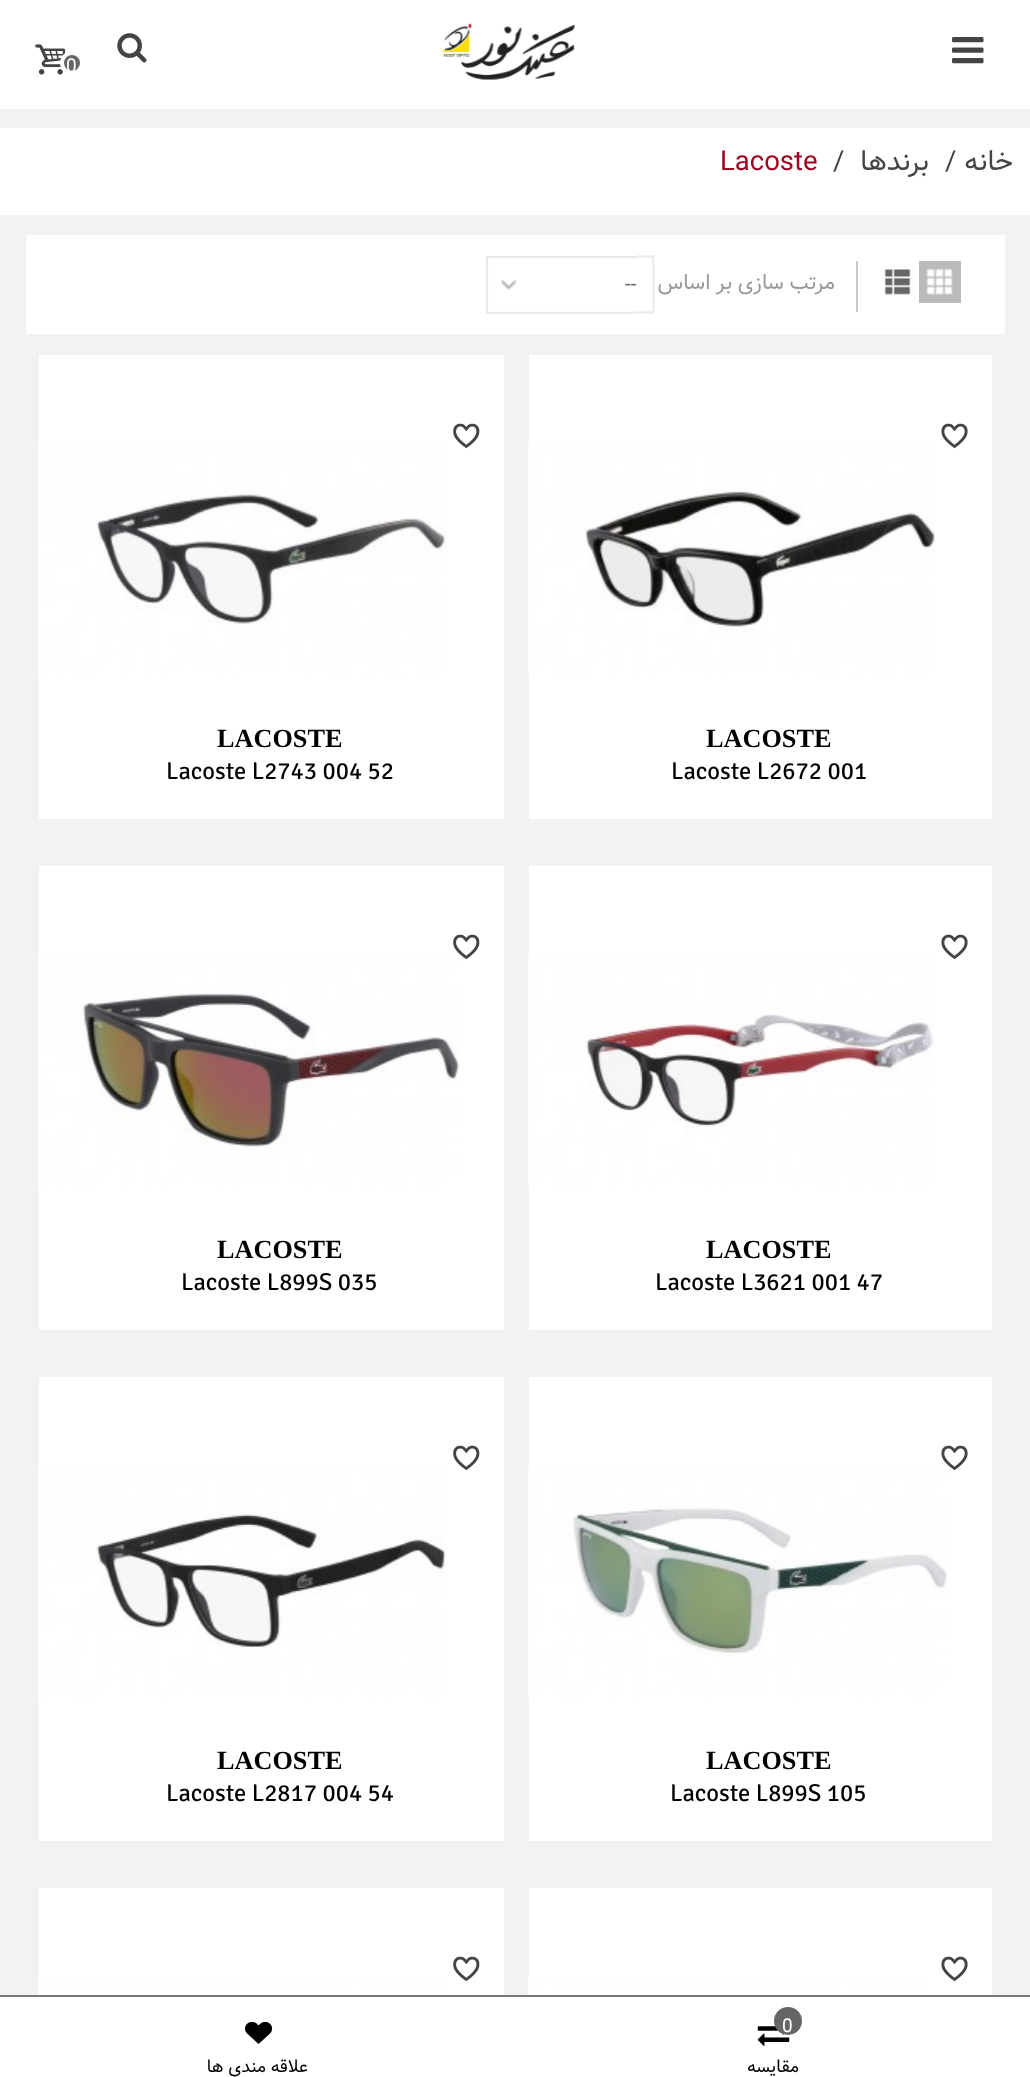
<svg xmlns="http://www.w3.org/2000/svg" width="1030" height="2077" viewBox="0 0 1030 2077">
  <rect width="100%" height="100%" fill="rgb(241,242,242)"/>
  <rect x="0" y="0" width="1030" height="109" fill="rgb(255,255,255)"/>
  <image x="442" y="23" width="133" height="57" href="pic1.png"/>
  <image x="952" y="37" width="32" height="27" href="pic2.png"/>
  <image x="117" y="33" width="30" height="30" href="pic3.png"/>
  <image x="35" y="44" width="31" height="31" href="pic4.png"/>
  <circle cx="72" cy="63" r="10" fill="rgb(102,102,102)" stroke="rgb(255,255,255)" stroke-width="4"/>
  <text x="66" y="72" font-family="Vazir" font-size="19" fill="rgb(255,255,255)">0</text>
  <rect x="0" y="128" width="1030" height="87" fill="rgb(255,255,255)"/>
  <text x="720" y="170" font-family="Vazir" font-size="27.5" fill="rgb(158,6,33)">Lacoste</text>
  <text x="833" y="170" font-family="Vazir" font-size="27.5" fill="rgb(68,68,68)">/</text>
  <text x="929" y="170" font-family="Vazir" font-size="27.5" direction="rtl" fill="rgb(68,68,68)">برندها</text>
  <text x="945" y="170" font-family="Vazir" font-size="27.5" fill="rgb(68,68,68)">/</text>
  <text x="1013" y="170" font-family="Vazir" font-size="27.5" direction="rtl" fill="rgb(68,68,68)">خانه</text>
  <rect x="26" y="235" width="979" height="99" fill="rgb(255,255,255)"/>
  <image x="636" y="255" width="19" height="59" href="pic5.png"/>
  <image x="486" y="256" width="151" height="58" href="pic6.png"/>
  <text x="625" y="291" font-family="Vazir" font-size="21" fill="rgb(102,102,102)">--</text>
  <text x="835" y="289" font-family="Vazir" font-size="21" direction="rtl" fill="rgb(153,153,153)">مرتب سازی بر اساس</text>
  <rect x="856" y="261" width="2" height="51" fill="rgb(201,201,202)"/>
  <image x="884" y="269" width="27" height="26" href="pic7.png"/>
  <rect x="919" y="261" width="42" height="42" fill="rgb(187,187,187)"/>
  <image x="926" y="268" width="27" height="27" href="pic8.png"/>
  <rect x="39" y="355" width="465" height="464" fill="rgb(255,255,255)"/>
  <image x="453" y="423" width="27" height="26" href="pic9.png"/>
  <image x="38" y="443" width="408" height="233" href="pic10.png"/>
  <text x="217" y="747" font-family="Liberation Serif" font-size="26.25" font-weight="bold" fill="rgb(0,0,0)">LACOSTE</text>
  <text x="166" y="779" font-family="Signika Negative" font-size="24.5" font-weight="300" fill="rgb(0,0,0)">Lacoste L2743 004 52</text>
  <rect x="529" y="355" width="463" height="464" fill="rgb(255,255,255)"/>
  <image x="941" y="423" width="27" height="26" href="pic11.png"/>
  <image x="528" y="443" width="407" height="233" href="pic12.png"/>
  <text x="706" y="747" font-family="Liberation Serif" font-size="26.25" font-weight="bold" fill="rgb(0,0,0)">LACOSTE</text>
  <text x="671" y="779" font-family="Signika Negative" font-size="24.5" font-weight="300" fill="rgb(0,0,0)">Lacoste L2672 001</text>
  <rect x="39" y="866" width="465" height="464" fill="rgb(255,255,255)"/>
  <image x="38" y="954" width="422" height="233" href="pic14.png"/>
  <image x="453" y="934" width="27" height="26" href="pic13.png"/>
  <text x="217" y="1258" font-family="Liberation Serif" font-size="26.25" font-weight="bold" fill="rgb(0,0,0)">LACOSTE</text>
  <text x="181" y="1290" font-family="Signika Negative" font-size="24.5" font-weight="300" fill="rgb(0,0,0)">Lacoste L899S 035</text>
  <rect x="529" y="866" width="463" height="464" fill="rgb(255,255,255)"/>
  <image x="941" y="934" width="27" height="26" href="pic11.png"/>
  <image x="528" y="954" width="407" height="233" href="pic15.png"/>
  <text x="706" y="1258" font-family="Liberation Serif" font-size="26.25" font-weight="bold" fill="rgb(0,0,0)">LACOSTE</text>
  <text x="655" y="1290" font-family="Signika Negative" font-size="24.5" font-weight="300" fill="rgb(0,0,0)">Lacoste L3621 001 47</text>
  <rect x="39" y="1377" width="465" height="464" fill="rgb(255,255,255)"/>
  <image x="453" y="1445" width="27" height="26" href="pic9.png"/>
  <image x="38" y="1465" width="408" height="233" href="pic16.png"/>
  <text x="217" y="1769" font-family="Liberation Serif" font-size="26.25" font-weight="bold" fill="rgb(0,0,0)">LACOSTE</text>
  <text x="166" y="1801" font-family="Signika Negative" font-size="24.5" font-weight="300" fill="rgb(0,0,0)">Lacoste L2817 004 54</text>
  <rect x="529" y="1377" width="463" height="464" fill="rgb(255,255,255)"/>
  <image x="528" y="1465" width="420" height="233" href="pic18.png"/>
  <image x="941" y="1445" width="27" height="26" href="pic17.png"/>
  <text x="706" y="1769" font-family="Liberation Serif" font-size="26.25" font-weight="bold" fill="rgb(0,0,0)">LACOSTE</text>
  <text x="670" y="1801" font-family="Signika Negative" font-size="24.5" font-weight="300" fill="rgb(0,0,0)">Lacoste L899S 105</text>
  <rect x="39" y="1888" width="465" height="107" fill="rgb(255,255,255)"/>
  <image x="453" y="1956" width="27" height="26" href="pic9.png"/>
  <image x="38" y="1976" width="409" height="19" href="pic19.png"/>
  <rect x="529" y="1888" width="463" height="107" fill="rgb(255,255,255)"/>
  <image x="941" y="1956" width="27" height="26" href="pic11.png"/>
  <image x="528" y="1976" width="401" height="19" href="pic20.png"/>
  <rect x="0" y="1995" width="1030" height="2" fill="rgb(119,119,119)"/>
  <rect x="0" y="1997" width="1030" height="80" fill="rgb(255,255,255)"/>
  <image x="245" y="2021" width="28" height="23" href="pic21.png"/>
  <text x="308" y="2072" font-family="Vazir" font-size="17.5" direction="rtl" fill="rgb(0,0,0)">علاقه مندی ها</text>
  <image x="757" y="2026" width="33" height="20" href="pic22.png"/>
  <circle cx="788" cy="2021" r="14" fill="rgb(102,102,102)"/>
  <text x="782" y="2032" font-family="Vazir" font-size="19" fill="rgb(255,255,255)">0</text>
  <text x="799" y="2072" font-family="Vazir" font-size="17.5" direction="rtl" fill="rgb(0,0,0)">مقایسه</text>
</svg>
